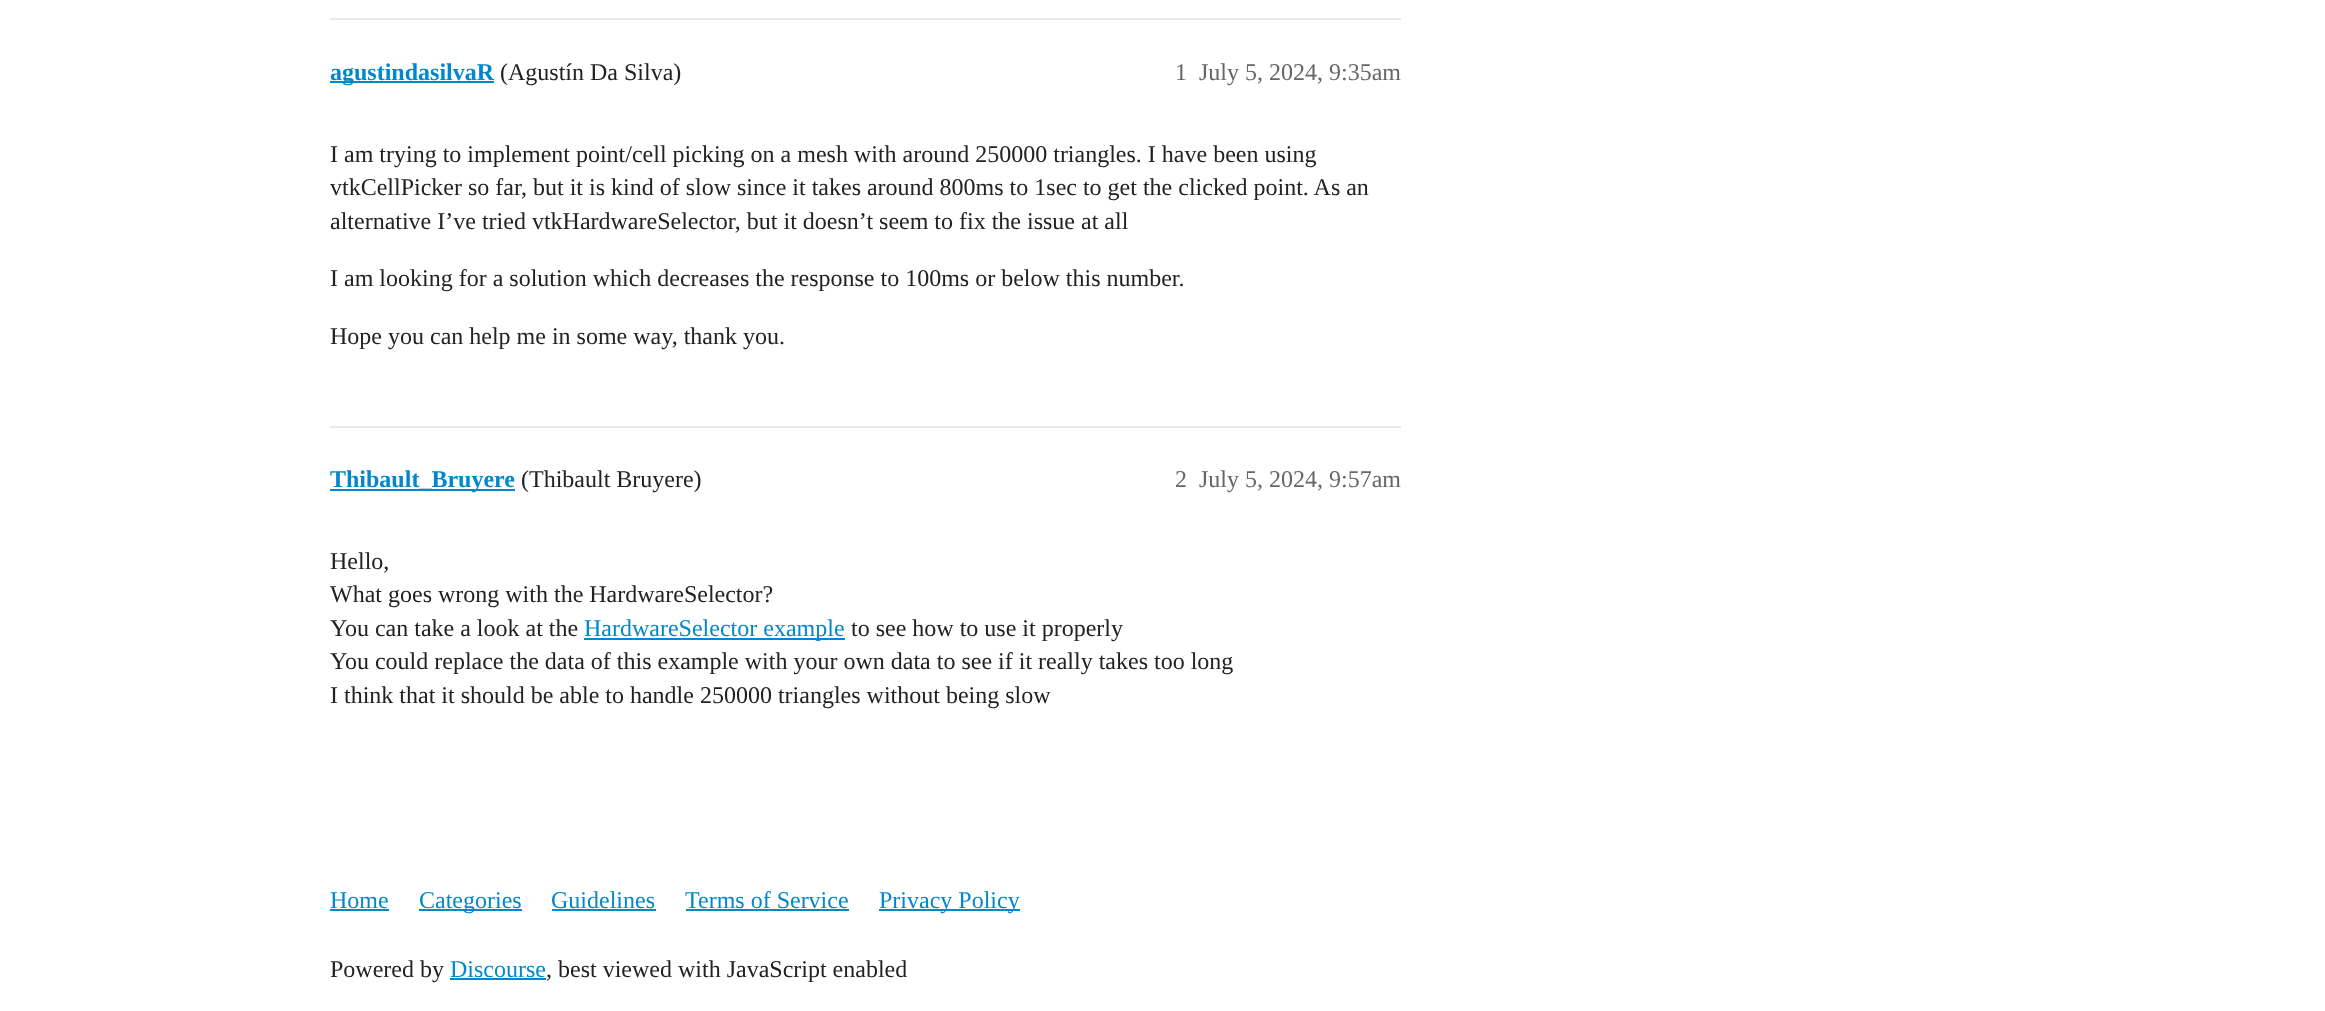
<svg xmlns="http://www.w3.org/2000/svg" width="2325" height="1011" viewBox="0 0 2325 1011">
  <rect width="100%" height="100%" fill="rgb(255,255,255)"/>
  <rect x="330" y="18" width="1071" height="2" fill="rgb(233,233,233)"/>
  <rect x="330" y="81" width="164" height="2" fill="rgb(0,136,204)"/>
  <text x="330" y="80" font-family="Liberation Serif" font-size="24" font-weight="bold" fill="rgb(0,136,204)">agustindasilvaR</text>
  <text x="500" y="80" font-family="Liberation Serif" font-size="24" fill="rgb(34,34,34)">(Agustín Da Silva)</text>
  <g font-family="Liberation Serif" font-size="24" fill="rgb(102,102,102)">
    <text x="1175" y="80">1</text>
    <text x="1199" y="80">July 5, 2024, 9:35am</text>
  </g>
  <g font-family="Liberation Serif" font-size="24" fill="rgb(34,34,34)">
    <text>
      <tspan x="330" y="162">I am trying to implement point/cell picking on a mesh with around 250000 triangles. I have been using</tspan>
      <tspan x="330" y="195">vtkCellPicker so far, but it is kind of slow since it takes around 800ms to 1sec to get the clicked point. As an</tspan>
      <tspan x="330" y="229">alternative I’ve tried vtkHardwareSelector, but it doesn’t seem to fix the issue at all</tspan>
    </text>
    <text x="330" y="286">I am looking for a solution which decreases the response to 100ms or below this number.</text>
    <text x="330" y="344">Hope you can help me in some way, thank you.</text>
  </g>
  <rect x="330" y="426" width="1071" height="2" fill="rgb(233,233,233)"/>
  <rect x="330" y="489" width="185" height="2" fill="rgb(0,136,204)"/>
  <text x="330" y="487" font-family="Liberation Serif" font-size="24" font-weight="bold" fill="rgb(0,136,204)">Thibault_Bruyere</text>
  <text x="521" y="487" font-family="Liberation Serif" font-size="24" fill="rgb(34,34,34)">(Thibault Bruyere)</text>
  <g font-family="Liberation Serif" font-size="24" fill="rgb(102,102,102)">
    <text x="1175" y="487">2</text>
    <text x="1199" y="487">July 5, 2024, 9:57am</text>
  </g>
  <g font-family="Liberation Serif" font-size="24" fill="rgb(34,34,34)">
    <text>
      <tspan x="330" y="569">Hello,</tspan>
      <tspan x="330" y="602">What goes wrong with the HardwareSelector?</tspan>
      <tspan x="330" y="636">You can take a look at the</tspan>
    </text>
  </g>
  <rect x="584" y="638" width="261" height="2" fill="rgb(0,136,204)"/>
  <text x="584" y="636" font-family="Liberation Serif" font-size="24" fill="rgb(0,136,204)">HardwareSelector example</text>
  <g font-family="Liberation Serif" font-size="24" fill="rgb(34,34,34)">
    <text x="851" y="636">to see how to use it properly</text>
    <text>
      <tspan x="330" y="669">You could replace the data of this example with your own data to see if it really takes too long</tspan>
      <tspan x="330" y="703">I think that it should be able to handle 250000 triangles without being slow</tspan>
    </text>
  </g>
  <text x="330" y="908" font-family="Liberation Serif" font-size="24" fill="rgb(0,136,204)">Home</text>
  <rect x="330" y="909" width="59" height="2" fill="rgb(0,136,204)"/>
  <rect x="419" y="909" width="103" height="2" fill="rgb(0,136,204)"/>
  <g font-family="Liberation Serif" font-size="24" fill="rgb(0,136,204)">
    <text x="419" y="908">Categories</text>
    <text x="551" y="908">Guidelines</text>
  </g>
  <rect x="552" y="909" width="104" height="2" fill="rgb(0,136,204)"/>
  <text x="685" y="908" font-family="Liberation Serif" font-size="24" fill="rgb(0,136,204)">Terms of Service</text>
  <rect x="686" y="909" width="163" height="2" fill="rgb(0,136,204)"/>
  <rect x="879" y="909" width="141" height="2" fill="rgb(0,136,204)"/>
  <text x="879" y="908" font-family="Liberation Serif" font-size="24" fill="rgb(0,136,204)">Privacy Policy</text>
  <text x="330" y="977" font-family="Liberation Serif" font-size="24" fill="rgb(34,34,34)">Powered by</text>
  <text x="450" y="977" font-family="Liberation Serif" font-size="24" fill="rgb(0,136,204)">Discourse</text>
  <rect x="450" y="978" width="96" height="2" fill="rgb(0,136,204)"/>
  <text x="546" y="977" font-family="Liberation Serif" font-size="24" fill="rgb(34,34,34)">, best viewed with JavaScript enabled</text>
</svg>
